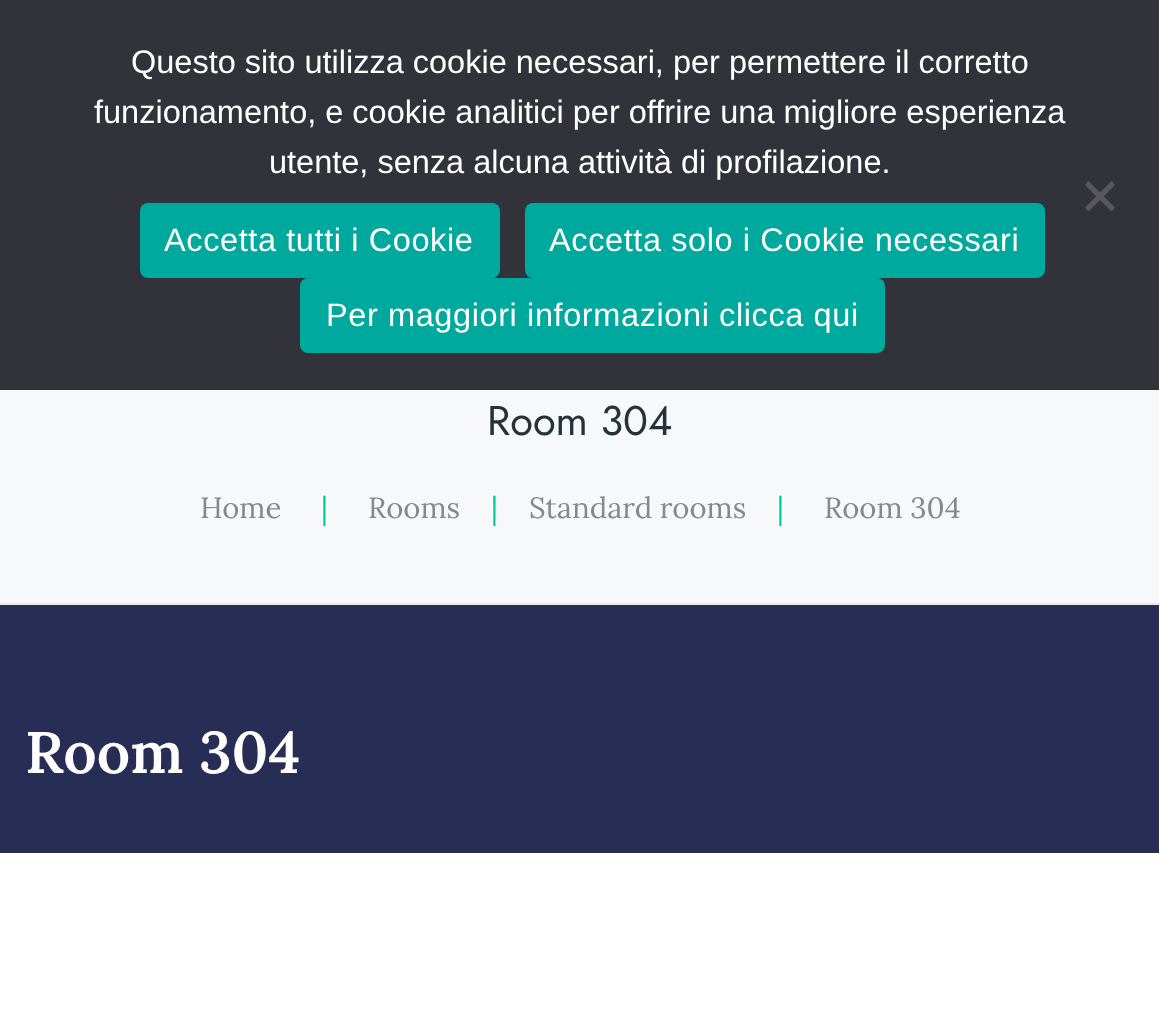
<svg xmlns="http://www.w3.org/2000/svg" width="1159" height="1031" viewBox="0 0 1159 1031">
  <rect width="100%" height="100%" fill="rgb(255,255,255)"/>
  <rect x="0" y="0" width="1159" height="390" fill="rgb(50,50,58)"/>
  <g font-family="Liberation Sans" font-size="32.5" fill="rgb(255,255,255)">
    <text x="131" y="73">Questo sito utilizza cookie necessari, per permettere il corretto</text>
    <text x="94" y="123">funzionamento, e cookie analitici per offrire una migliore esperienza</text>
    <text x="269" y="173">utente, senza alcuna attività di profilazione.</text>
  </g>
  <path d="M1111.5 181L1115 185L1088.5 211.5L1085 207.5Z" fill="rgb(89,89,93)"/>
  <path d="M1085 185L1088.5 181L1115 207.5L1111.5 211.5Z" fill="rgb(89,89,93)"/>
  <rect x="140" y="203" width="360" height="75" rx="8" fill="rgb(0,169,157)"/>
  <text x="164" y="251" font-family="Liberation Sans" font-size="32.5" letter-spacing="0.6" fill="rgb(255,255,255)">Accetta tutti i Cookie</text>
  <rect x="525" y="203" width="520" height="75" rx="8" fill="rgb(0,169,157)"/>
  <text x="549" y="251" font-family="Liberation Sans" font-size="32.5" letter-spacing="0.6" fill="rgb(255,255,255)">Accetta solo i Cookie necessari</text>
  <rect x="300" y="278" width="585" height="75" rx="8" fill="rgb(0,169,157)"/>
  <text x="326" y="326" font-family="Liberation Sans" font-size="32.5" letter-spacing="0.6" fill="rgb(255,255,255)">Per maggiori informazioni clicca qui</text>
  <rect x="0" y="390" width="1159" height="213" fill="rgb(247,248,249)"/>
  <rect x="0" y="603" width="1159" height="2" fill="rgb(233,233,233)"/>
  <text x="487" y="435" font-family="Jost" font-size="41.5" fill="rgb(37,50,55)">Room 304</text>
  <text x="200" y="518" font-family="Lora" font-size="29.25" fill="rgb(136,136,136)">Home</text>
  <text x="321" y="518" font-family="Lora" font-size="29.25" fill="rgb(2,195,154)">|</text>
  <text x="368" y="518" font-family="Lora" font-size="29.25" fill="rgb(136,136,136)">Rooms</text>
  <text x="491" y="518" font-family="Lora" font-size="29.25" fill="rgb(2,195,154)">|</text>
  <text x="529" y="518" font-family="Lora" font-size="29.25" fill="rgb(136,136,136)">Standard rooms</text>
  <text x="777" y="518" font-family="Lora" font-size="29.25" fill="rgb(2,195,154)">|</text>
  <text x="824" y="518" font-family="Lora" font-size="29.25" fill="rgb(136,136,136)">Room 304</text>
  <rect x="0" y="605" width="1159" height="248" fill="rgb(39,45,85)"/>
  <text x="25" y="773" font-family="Lora" font-size="58.5" font-weight="600" fill="rgb(255,255,255)">Room 304</text>
</svg>
